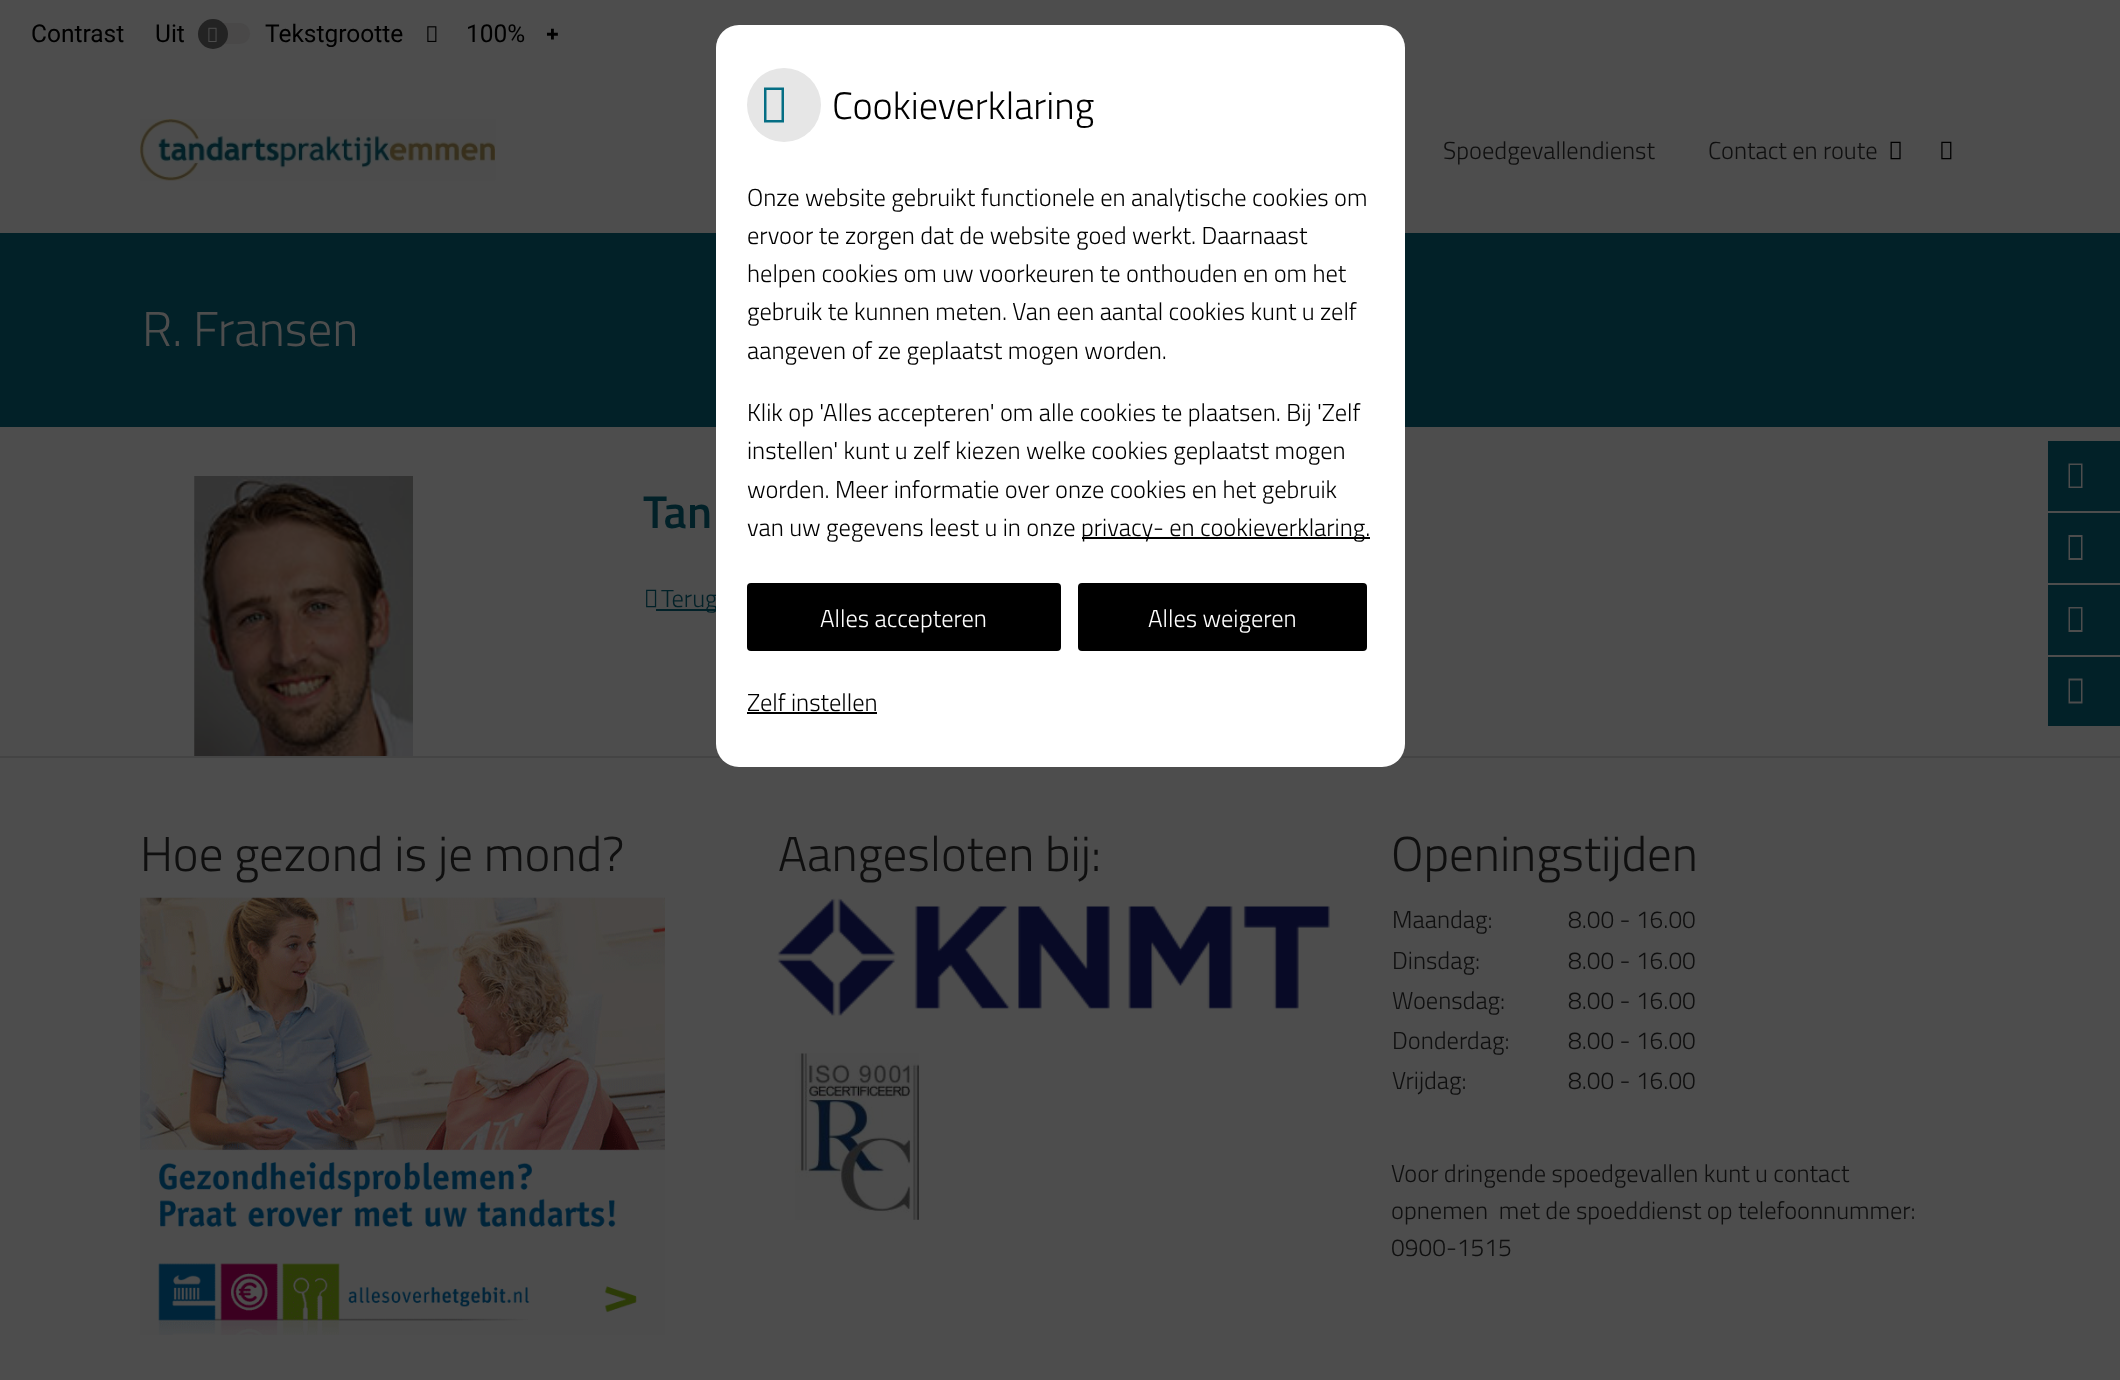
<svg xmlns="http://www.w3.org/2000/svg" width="2120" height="1380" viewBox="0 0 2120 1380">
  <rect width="100%" height="100%" fill="rgb(77,77,77)"/>
  <text x="31" y="42" font-family="Roboto" font-size="24.5" fill="rgb(0,0,0)">Contrast</text>
  <rect x="198" y="23" width="52" height="21" rx="10.5" fill="rgb(73,72,72)"/>
  <circle cx="213" cy="34" r="15" fill="rgb(35,35,35)"/>
  <image x="208" y="27" width="9" height="15" href="pic1.png"/>
  <g font-family="Roboto" font-size="24.5" fill="rgb(0,0,0)">
    <text x="155" y="42">Uit</text>
    <text x="265" y="42">Tekstgrootte</text>
  </g>
  <image x="427" y="26" width="10" height="16" href="pic2.png"/>
  <text x="466" y="42" font-family="Roboto" font-size="24.5" fill="rgb(0,0,0)">100%</text>
  <text x="546" y="42" font-family="Noto Sans" font-size="22" font-weight="900" fill="rgb(0,0,0)">+</text>
  <rect x="0" y="233" width="2120" height="194" fill="rgb(2,33,40)"/>
  <rect x="656" y="609" width="60" height="2" fill="rgb(2,33,40)"/>
  <text x="661" y="607" font-family="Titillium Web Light" font-size="24.5" font-weight="300" fill="rgb(2,33,40)">Terug</text>
  <rect x="0" y="756" width="2120" height="2" fill="rgb(68,68,68)"/>
  <rect x="716" y="25" width="689" height="742" rx="23" fill="rgb(255,255,255)"/>
  <circle cx="784" cy="105" r="37" fill="rgb(230,230,230)"/>
  <path d="M764 122.5V87.5H784V122.5ZM766.5 120H781.5V90H766.5Z" fill="rgb(5,110,132)"/>
  <text x="832" y="119" font-family="Titillium Web Light" font-size="38.25" font-weight="300" fill="rgb(0,0,0)">Cookieverklaring</text>
  <g font-family="Titillium Web Light" font-size="24.5" font-weight="300" fill="rgb(0,0,0)">
    <text>
      <tspan x="747" y="206">Onze website gebruikt functionele en analytische cookies om</tspan>
      <tspan x="747" y="244">ervoor te zorgen dat de website goed werkt. Daarnaast</tspan>
      <tspan x="747" y="282">helpen cookies om uw voorkeuren te onthouden en om het</tspan>
      <tspan x="747" y="320">gebruik te kunnen meten. Van een aantal cookies kunt u zelf</tspan>
      <tspan x="747" y="359">aangeven of ze geplaatst mogen worden.</tspan>
    </text>
    <text>
      <tspan x="747" y="421">Klik op 'Alles accepteren' om alle cookies te plaatsen. Bij 'Zelf</tspan>
      <tspan x="747" y="459">instellen' kunt u zelf kiezen welke cookies geplaatst mogen</tspan>
      <tspan x="747" y="498">worden. Meer informatie over onze cookies en het gebruik</tspan>
      <tspan x="747" y="536">van uw gegevens leest u in onze</tspan>
    </text>
  </g>
  <rect x="1082" y="537" width="288" height="2" fill="rgb(0,0,0)"/>
  <text x="1081" y="536" font-family="Titillium Web Light" font-size="24.5" font-weight="300" fill="rgb(0,0,0)">privacy- en cookieverklaring.</text>
  <rect x="747" y="583" width="314" height="68" rx="4" fill="rgb(0,0,0)"/>
  <text x="820" y="627" font-family="Titillium Web Light" font-size="24.5" font-weight="300" fill="rgb(255,255,255)">Alles accepteren</text>
  <rect x="1078" y="583" width="289" height="68" rx="4" fill="rgb(0,0,0)"/>
  <text x="1148" y="627" font-family="Titillium Web Light" font-size="24.5" font-weight="300" fill="rgb(255,255,255)">Alles weigeren</text>
  <text x="747" y="711" font-family="Titillium Web Light" font-size="24.5" font-weight="300" fill="rgb(0,0,0)">Zelf instellen</text>
  <rect x="747" y="712" width="130" height="2" fill="rgb(0,0,0)"/>
  <image x="140" y="119" width="356" height="62" href="pic3.png"/>
  <rect x="495" y="147" width="1" height="14" fill="rgb(77,77,77)"/>
  <g font-family="Titillium Web Light" font-size="24.5" font-weight="300" fill="rgb(15,15,15)">
    <text x="1443" y="159">Spoedgevallendienst</text>
    <text x="1708" y="159">Contact en route</text>
  </g>
  <image x="1890" y="141" width="11" height="19" href="pic4.png"/>
  <image x="1941" y="141" width="11" height="19" href="pic5.png"/>
  <text x="142" y="346" font-family="Titillium Web Light" font-size="49" font-weight="300" fill="rgb(77,77,77)">R. Fransen</text>
  <image x="194" y="476" width="219" height="280" href="pic6.png"/>
  <text x="643" y="528" font-family="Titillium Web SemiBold" font-size="46" font-weight="600" fill="rgb(2,33,40)">Tan</text>
  <image x="646" y="589" width="11" height="19" href="pic7.png"/>
  <rect x="2048" y="441" width="72" height="285" fill="rgb(2,33,40)"/>
  <rect x="2048" y="511" width="72" height="2" fill="rgb(77,77,77)"/>
  <path d="M2068.5 488V463.5H2082.5V488ZM2070 486.5H2081V465H2070Z" fill="rgb(77,77,77)"/>
  <rect x="2048" y="583" width="72" height="2" fill="rgb(77,77,77)"/>
  <path d="M2068.5 560V535H2082.5V560ZM2070 558H2081V537H2070Z" fill="rgb(77,77,77)"/>
  <rect x="2048" y="655" width="72" height="2" fill="rgb(77,77,77)"/>
  <path d="M2068.5 632V607H2082.5V632ZM2070 630H2081V608.5H2070Z" fill="rgb(77,77,77)"/>
  <path d="M2068.5 703.5V678.5H2082.5V703.5ZM2070 701.5H2081V680.5H2070Z" fill="rgb(77,77,77)"/>
  <text x="140" y="871" font-family="Titillium Web Light" font-size="49" font-weight="300" fill="rgb(15,15,15)">Hoe gezond is je mond?</text>
  <image x="140" y="897" width="525" height="438" href="pic8.png"/>
  <text x="778" y="871" font-family="Titillium Web Light" font-size="49" font-weight="300" fill="rgb(15,15,15)">Aangesloten bij:</text>
  <image x="777" y="898" width="553" height="118" href="pic9.png"/>
  <image x="795" y="1053" width="124" height="167" href="pic10.png"/>
  <text x="1391" y="871" font-family="Titillium Web Light" font-size="49" font-weight="300" fill="rgb(15,15,15)">Openingstijden</text>
  <g font-family="Titillium Web Light" font-size="24.5" font-weight="300" fill="rgb(15,15,15)">
    <text x="1392" y="928">Maandag:</text>
    <text x="1568" y="928">8.00 - 16.00</text>
    <text x="1392" y="969">Dinsdag:</text>
    <text x="1568" y="969">8.00 - 16.00</text>
    <text x="1392" y="1009">Woensdag:</text>
    <text x="1568" y="1009">8.00 - 16.00</text>
    <text x="1392" y="1049">Donderdag:</text>
    <text x="1568" y="1049">8.00 - 16.00</text>
    <text x="1392" y="1089">Vrijdag:</text>
    <text x="1568" y="1089">8.00 - 16.00</text>
    <text xml:space="preserve"><tspan x="1391" y="1182">Voor dringende spoedgevallen kunt u contact</tspan><tspan x="1391" y="1219">opnemen  met de spoeddienst op telefoonnummer:</tspan><tspan x="1391" y="1256">0900-1515</tspan></text>
  </g>
</svg>
